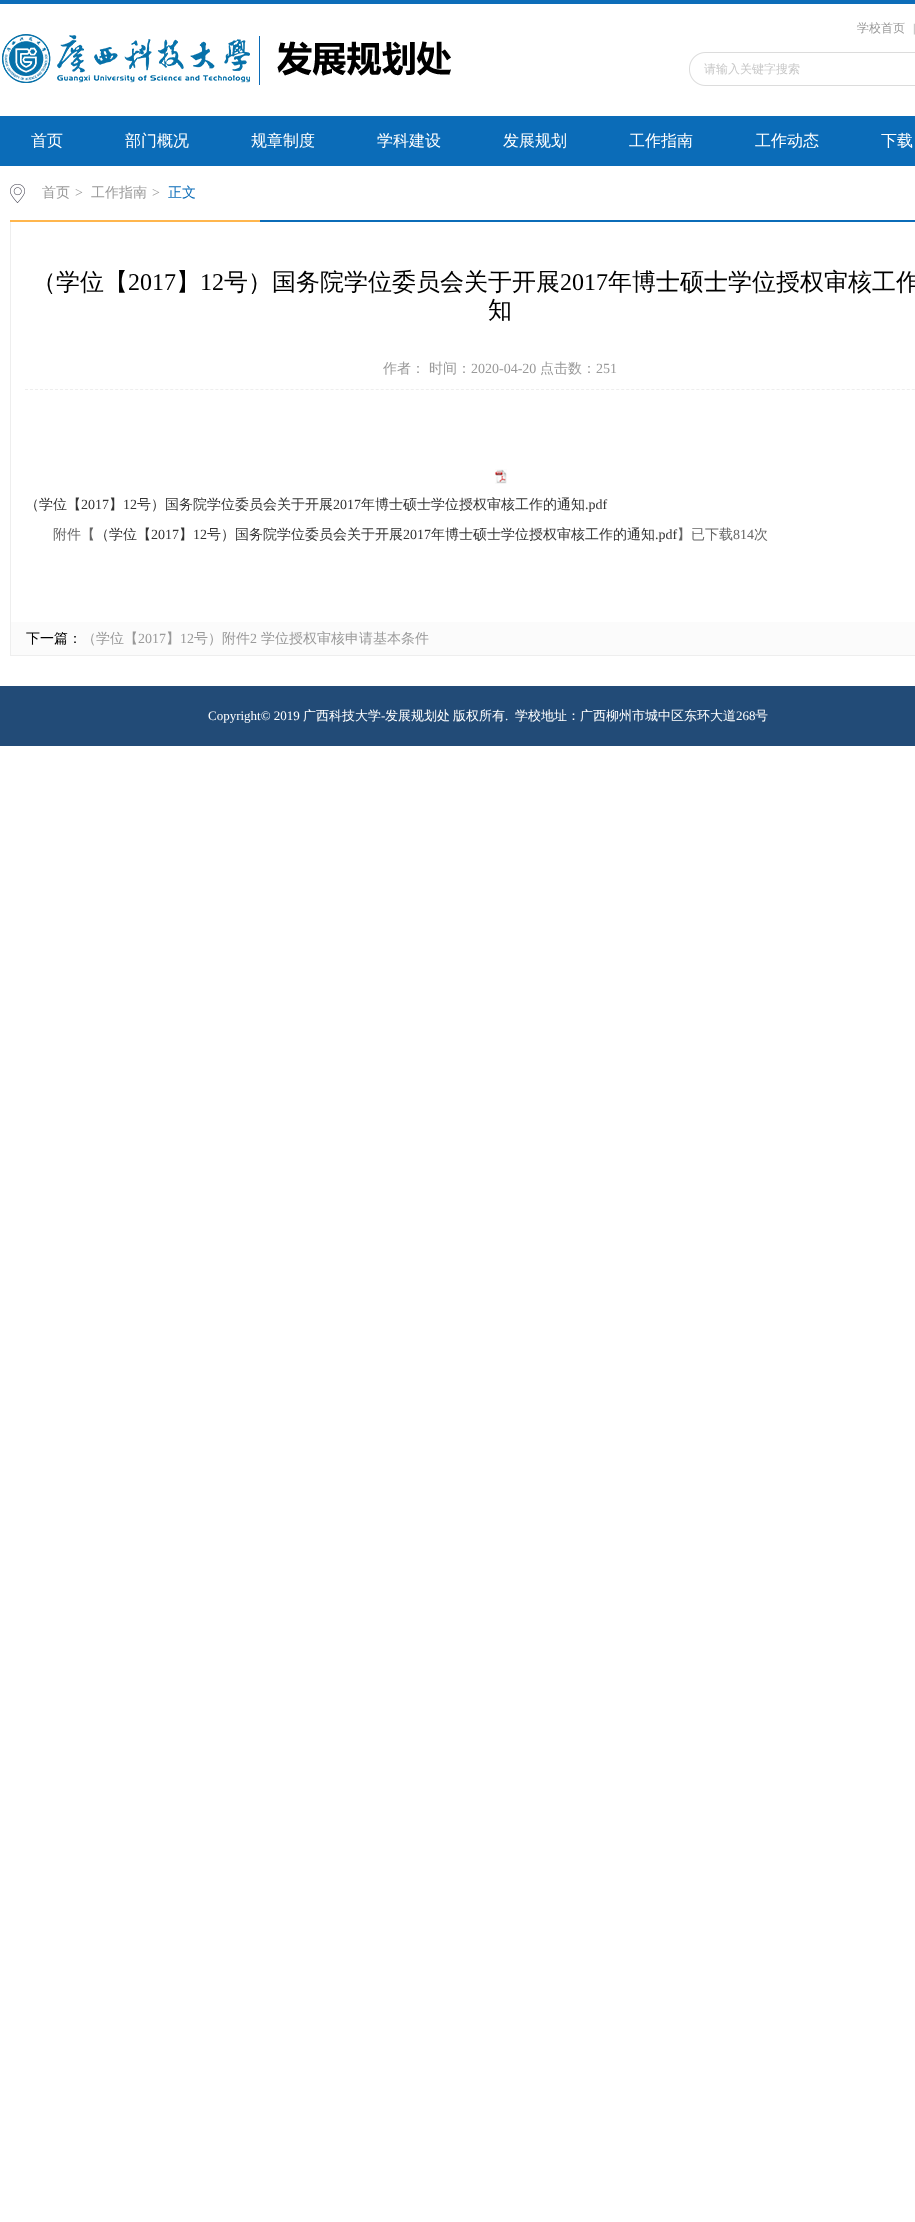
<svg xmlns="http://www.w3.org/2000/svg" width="915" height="2222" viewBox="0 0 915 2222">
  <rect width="100%" height="100%" fill="rgb(255,255,255)"/>
  <rect x="0" y="0" width="915" height="4" fill="rgb(13,109,185)"/>
  <image x="2" y="34" width="449" height="51" href="pic1.png"/>
  <text x="857" y="32" font-family="WenQuanYi Zen Hei" font-size="12" font-weight="500" fill="rgb(153,153,153)">学校首页</text>
  <text x="913" y="32" font-family="Liberation Serif" font-size="12" fill="rgb(153,153,153)">|</text>
  <image x="689" y="52" width="226" height="34" href="pic2.png"/>
  <text x="704" y="73" font-family="WenQuanYi Zen Hei" font-size="12" font-weight="500" fill="rgb(200,200,200)">请输入关键字搜索</text>
  <rect x="0" y="116" width="915" height="50" fill="rgb(11,108,184)"/>
  <g font-family="WenQuanYi Zen Hei" font-size="16" font-weight="500" fill="rgb(255,255,255)">
    <text x="31" y="146">首页</text>
    <text x="125" y="146">部门概况</text>
    <text x="251" y="146">规章制度</text>
    <text x="377" y="146">学科建设</text>
    <text x="503" y="146">发展规划</text>
    <text x="629" y="146">工作指南</text>
    <text x="755" y="146">工作动态</text>
    <text x="881" y="146">下载</text>
  </g>
  <rect x="260" y="220" width="655" height="2" fill="rgb(11,108,184)"/>
  <rect x="10" y="220" width="250" height="2" fill="rgb(255,182,77)"/>
  <image x="10" y="184" width="15" height="19" href="pic3.png"/>
  <text x="42" y="197" font-family="WenQuanYi Zen Hei" font-size="14" font-weight="500" fill="rgb(153,153,153)">首页</text>
  <text x="75" y="197" font-family="Liberation Serif" font-size="14" fill="rgb(153,153,153)">&gt;</text>
  <text x="91" y="197" font-family="WenQuanYi Zen Hei" font-size="14" font-weight="500" fill="rgb(153,153,153)">工作指南</text>
  <text x="152" y="197" font-family="Liberation Serif" font-size="14" fill="rgb(153,153,153)">&gt;</text>
  <text x="168" y="197" font-family="WenQuanYi Zen Hei" font-size="14" font-weight="500" fill="rgb(11,108,184)">正文</text>
  <rect x="10" y="655" width="905" height="1" fill="rgb(238,238,238)"/>
  <rect x="10" y="222" width="1" height="434" fill="rgb(238,238,238)"/>
  <path d="M25 389.5H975" fill="none" stroke="rgb(238,238,238)" stroke-dasharray="3 2.01"/>
  <text x="32" y="290" font-family="WenQuanYi Zen Hei" font-size="24" font-weight="500" fill="rgb(0,0,0)">（学位【</text>
  <text x="128" y="290" font-family="Liberation Serif" font-size="24" fill="rgb(0,0,0)">2017</text>
  <text x="176" y="290" font-family="WenQuanYi Zen Hei" font-size="24" font-weight="500" fill="rgb(0,0,0)">】</text>
  <text x="200" y="290" font-family="Liberation Serif" font-size="24" fill="rgb(0,0,0)">12</text>
  <text x="224" y="290" font-family="WenQuanYi Zen Hei" font-size="24" font-weight="500" fill="rgb(0,0,0)">号）国务院学位委员会关于开展</text>
  <text x="560" y="290" font-family="Liberation Serif" font-size="24" fill="rgb(0,0,0)">2017</text>
  <g font-family="WenQuanYi Zen Hei" font-size="24" font-weight="500" fill="rgb(0,0,0)">
    <text x="608" y="290">年博士硕士学位授权审核工作</text>
    <text x="488" y="318">知</text>
  </g>
  <g font-family="WenQuanYi Zen Hei" font-size="14" font-weight="500" fill="rgb(153,153,153)">
    <text x="383" y="373">作者：</text>
    <text x="429" y="373">时间：</text>
  </g>
  <text x="471" y="373" font-family="Liberation Serif" font-size="14" fill="rgb(153,153,153)">2020-04-20</text>
  <text x="540" y="373" font-family="WenQuanYi Zen Hei" font-size="14" font-weight="500" fill="rgb(153,153,153)">点击数：</text>
  <text x="596" y="373" font-family="Liberation Serif" font-size="14" fill="rgb(153,153,153)">251</text>
  <image x="495" y="469" width="12" height="15" href="pic4.png"/>
  <text x="25" y="509" font-family="WenQuanYi Zen Hei" font-size="14" font-weight="500" fill="rgb(51,51,51)">（学位【</text>
  <text x="81" y="509" font-family="Liberation Serif" font-size="14" fill="rgb(51,51,51)">2017</text>
  <text x="109" y="509" font-family="WenQuanYi Zen Hei" font-size="14" font-weight="500" fill="rgb(51,51,51)">】</text>
  <text x="123" y="509" font-family="Liberation Serif" font-size="14" fill="rgb(51,51,51)">12</text>
  <text x="137" y="509" font-family="WenQuanYi Zen Hei" font-size="14" font-weight="500" fill="rgb(51,51,51)">号）国务院学位委员会关于开展</text>
  <text x="333" y="509" font-family="Liberation Serif" font-size="14" fill="rgb(51,51,51)">2017</text>
  <text x="361" y="509" font-family="WenQuanYi Zen Hei" font-size="14" font-weight="500" fill="rgb(51,51,51)">年博士硕士学位授权审核工作的通知</text>
  <text x="585" y="509" font-family="Liberation Serif" font-size="14" fill="rgb(51,51,51)">.pdf</text>
  <text x="53" y="539" font-family="WenQuanYi Zen Hei" font-size="14" font-weight="500" fill="rgb(102,102,102)">附件【</text>
  <text x="95" y="539" font-family="WenQuanYi Zen Hei" font-size="14" font-weight="500" fill="rgb(51,51,51)">（学位【</text>
  <text x="151" y="539" font-family="Liberation Serif" font-size="14" fill="rgb(51,51,51)">2017</text>
  <text x="179" y="539" font-family="WenQuanYi Zen Hei" font-size="14" font-weight="500" fill="rgb(51,51,51)">】</text>
  <text x="193" y="539" font-family="Liberation Serif" font-size="14" fill="rgb(51,51,51)">12</text>
  <text x="207" y="539" font-family="WenQuanYi Zen Hei" font-size="14" font-weight="500" fill="rgb(51,51,51)">号）国务院学位委员会关于开展</text>
  <text x="403" y="539" font-family="Liberation Serif" font-size="14" fill="rgb(51,51,51)">2017</text>
  <text x="431" y="539" font-family="WenQuanYi Zen Hei" font-size="14" font-weight="500" fill="rgb(51,51,51)">年博士硕士学位授权审核工作的通知</text>
  <text x="655" y="539" font-family="Liberation Serif" font-size="14" fill="rgb(51,51,51)">.pdf</text>
  <text x="677" y="539" font-family="WenQuanYi Zen Hei" font-size="14" font-weight="500" fill="rgb(102,102,102)">】已下载</text>
  <text x="733" y="539" font-family="Liberation Serif" font-size="14" fill="rgb(102,102,102)">814</text>
  <text x="754" y="539" font-family="WenQuanYi Zen Hei" font-size="14" font-weight="500" fill="rgb(102,102,102)">次</text>
  <rect x="11" y="622" width="904" height="33" fill="rgb(251,251,251)"/>
  <text x="26" y="643" font-family="WenQuanYi Zen Hei" font-size="14" font-weight="500" fill="rgb(0,0,0)">下一篇：</text>
  <text x="82" y="643" font-family="WenQuanYi Zen Hei" font-size="14" font-weight="500" fill="rgb(153,153,153)">（学位【</text>
  <text x="138" y="643" font-family="Liberation Serif" font-size="14" fill="rgb(153,153,153)">2017</text>
  <text x="166" y="643" font-family="WenQuanYi Zen Hei" font-size="14" font-weight="500" fill="rgb(153,153,153)">】</text>
  <text x="180" y="643" font-family="Liberation Serif" font-size="14" fill="rgb(153,153,153)">12</text>
  <text x="194" y="643" font-family="WenQuanYi Zen Hei" font-size="14" font-weight="500" fill="rgb(153,153,153)">号）附件</text>
  <text x="250" y="643" font-family="Liberation Serif" font-size="14" fill="rgb(153,153,153)">2</text>
  <text x="261" y="643" font-family="WenQuanYi Zen Hei" font-size="14" font-weight="500" fill="rgb(153,153,153)">学位授权审核申请基本条件</text>
  <rect x="0" y="686" width="915" height="60" fill="rgb(34,75,119)"/>
  <text x="208" y="720" font-family="Liberation Serif" font-size="13" fill="rgb(255,255,255)">Copyright© 2019</text>
  <text x="303" y="720" font-family="WenQuanYi Zen Hei" font-size="13" font-weight="500" fill="rgb(255,255,255)">广西科技大学</text>
  <text x="381" y="720" font-family="Liberation Serif" font-size="13" fill="rgb(255,255,255)">-</text>
  <g font-family="WenQuanYi Zen Hei" font-size="13" font-weight="500" fill="rgb(255,255,255)">
    <text x="385" y="720">发展规划处</text>
    <text x="453" y="720">版权所有</text>
    <text x="515" y="720">学校地址：广西柳州市城中区东环大道</text>
  </g>
  <text x="736" y="720" font-family="Liberation Serif" font-size="13" fill="rgb(255,255,255)">268</text>
  <text x="755" y="720" font-family="WenQuanYi Zen Hei" font-size="13" font-weight="500" fill="rgb(255,255,255)">号</text>
  <text x="505" y="720" font-family="Liberation Serif" font-size="13" fill="rgb(255,255,255)">.</text>
</svg>
